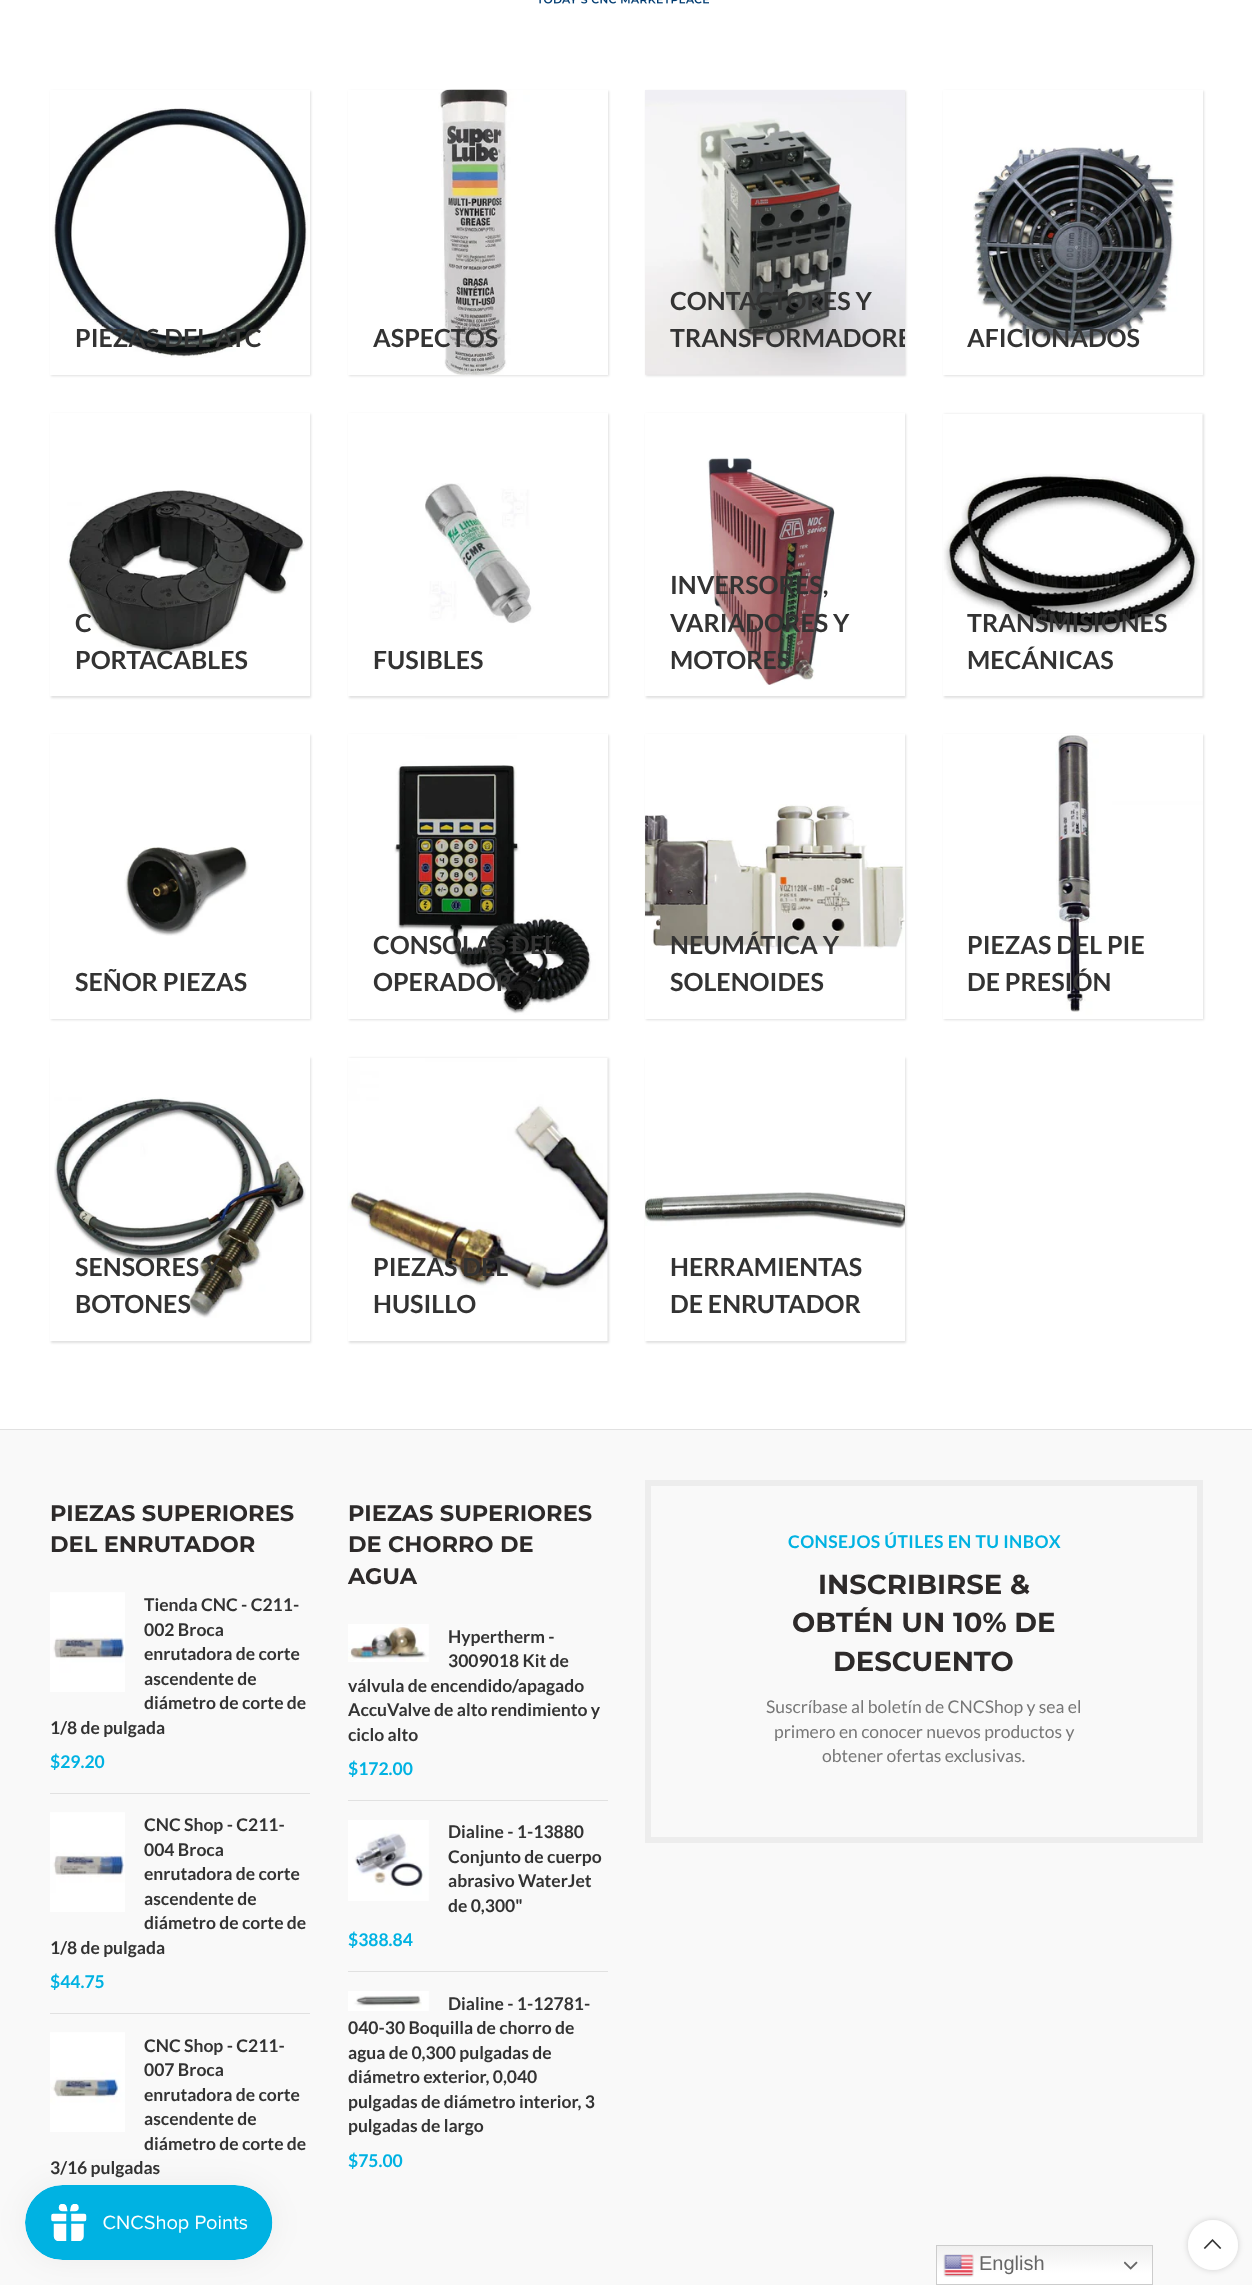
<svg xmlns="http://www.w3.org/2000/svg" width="1252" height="2285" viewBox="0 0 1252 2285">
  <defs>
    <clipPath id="clip1"><path d="M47 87H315V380H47ZM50 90H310V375H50Z" clip-rule="evenodd"/></clipPath>
    <clipPath id="clip2"><path d="M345 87H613V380H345ZM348 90H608V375H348Z" clip-rule="evenodd"/></clipPath>
    <clipPath id="clip3"><rect x="645" y="90" width="260" height="285"/></clipPath>
    <clipPath id="clip4"><path d="M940 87H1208V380H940ZM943 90H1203V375H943Z" clip-rule="evenodd"/></clipPath>
    <clipPath id="clip5"><path d="M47 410H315V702H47ZM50 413H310V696H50Z" clip-rule="evenodd"/></clipPath>
    <clipPath id="clip6"><path d="M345 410H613V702H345ZM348 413H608V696H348Z" clip-rule="evenodd"/></clipPath>
    <clipPath id="clip7"><path d="M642 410H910V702H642ZM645 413H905V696H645Z" clip-rule="evenodd"/></clipPath>
    <clipPath id="clip8"><path d="M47 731H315V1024H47ZM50 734H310V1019H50Z" clip-rule="evenodd"/></clipPath>
    <clipPath id="clip9"><path d="M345 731H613V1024H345ZM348 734H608V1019H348Z" clip-rule="evenodd"/></clipPath>
    <clipPath id="clip10"><path d="M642 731H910V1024H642ZM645 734H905V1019H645Z" clip-rule="evenodd"/></clipPath>
    <clipPath id="clip11"><path d="M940 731H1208V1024H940ZM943 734H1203V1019H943Z" clip-rule="evenodd"/></clipPath>
    <clipPath id="clip12"><path d="M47 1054H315V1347H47ZM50 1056H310V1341H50Z" clip-rule="evenodd"/></clipPath>
    <clipPath id="clip13"><path d="M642 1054H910V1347H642ZM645 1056H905V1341H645Z" clip-rule="evenodd"/></clipPath>
    <linearGradient id="g1" gradientUnits="userSpaceOnUse" x1="1044" y1="2245" x2="1044" y2="2285"><stop offset="0" stop-color="rgb(239,239,239)"/><stop offset="0.7" stop-color="rgb(255,255,255)"/></linearGradient>
    <clipPath id="clip14"><path d="M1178 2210H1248V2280H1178ZM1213 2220C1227 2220 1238 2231 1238 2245C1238 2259 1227 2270 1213 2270C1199 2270 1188 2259 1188 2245C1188 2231 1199 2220 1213 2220Z" clip-rule="evenodd"/></clipPath>
  </defs>
  <rect width="100%" height="100%" fill="rgb(255,255,255)"/>
  <image x="539" y="0" width="170" height="4" href="pic1.png"/>
  <g clip-path="url(#clip1)">
    <rect x="51" y="91" width="260" height="285" fill="rgba(0,0,0,0.12)" filter="blur(1px)"/>
  </g>
  <image x="52" y="108" width="256" height="250" href="pic2.png"/>
  <text x="75" y="347" font-family="Lato" font-size="25" font-weight="bold" fill="rgb(51,51,51)">PIEZAS DEL ATC</text>
  <g clip-path="url(#clip2)">
    <rect x="349" y="91" width="260" height="285" fill="rgba(0,0,0,0.12)" filter="blur(1px)"/>
  </g>
  <image x="438" y="89" width="170" height="286" href="pic3.png"/>
  <text x="373" y="347" font-family="Lato" font-size="25" font-weight="bold" fill="rgb(51,51,51)">ASPECTOS</text>
  <rect x="646" y="91" width="260" height="285" fill="rgba(0,0,0,0.12)" filter="blur(1px)"/>
  <image x="645" y="90" width="260" height="285" href="pic4.png"/>
  <text x="670" y="310" font-family="Lato" font-size="25" font-weight="bold" fill="rgb(51,51,51)">CONTACTORES Y</text>
  <g clip-path="url(#clip3)">
    <text x="670" y="347" font-family="Lato" font-size="25" font-weight="bold" fill="rgb(51,51,51)">TRANSFORMADORE</text>
  </g>
  <g clip-path="url(#clip4)">
    <rect x="944" y="91" width="260" height="285" fill="rgba(0,0,0,0.12)" filter="blur(1px)"/>
  </g>
  <image x="973" y="91" width="230" height="284" href="pic5.png"/>
  <text x="967" y="347" font-family="Lato" font-size="25" font-weight="bold" fill="rgb(51,51,51)">AFICIONADOS</text>
  <g clip-path="url(#clip5)">
    <rect x="51" y="414" width="260" height="284" fill="rgba(0,0,0,0.12)" filter="blur(1px)"/>
  </g>
  <image x="67" y="490" width="238" height="164" href="pic6.png"/>
  <g font-family="Lato" font-size="25" font-weight="bold" fill="rgb(51,51,51)">
    <text>
      <tspan x="75" y="632">C</tspan>
      <tspan x="75" y="669">PORTACABLES</tspan>
    </text>
  </g>
  <g clip-path="url(#clip6)">
    <rect x="349" y="414" width="260" height="284" fill="rgba(0,0,0,0.12)" filter="blur(1px)"/>
  </g>
  <image x="425" y="414" width="183" height="282" href="pic7.png"/>
  <text x="373" y="669" font-family="Lato" font-size="25" font-weight="bold" fill="rgb(51,51,51)">FUSIBLES</text>
  <g clip-path="url(#clip7)">
    <rect x="646" y="414" width="260" height="284" fill="rgba(0,0,0,0.12)" filter="blur(1px)"/>
  </g>
  <image x="707" y="457" width="128" height="228" href="pic8.png"/>
  <g font-family="Lato" font-size="25" font-weight="bold" fill="rgb(51,51,51)">
    <text>
      <tspan x="670" y="594">INVERSORES,</tspan>
      <tspan x="670" y="632">VARIADORES Y</tspan>
      <tspan x="670" y="669">MOTORES</tspan>
    </text>
  </g>
  <rect x="944" y="414" width="260" height="284" fill="rgba(0,0,0,0.12)" filter="blur(1px)"/>
  <image x="943" y="414" width="260" height="282" href="pic9.png"/>
  <g font-family="Lato" font-size="25" font-weight="bold" fill="rgb(51,51,51)">
    <text>
      <tspan x="967" y="632">TRANSMISIONES</tspan>
      <tspan x="967" y="669">MECÁNICAS</tspan>
    </text>
  </g>
  <g clip-path="url(#clip8)">
    <rect x="51" y="735" width="260" height="285" fill="rgba(0,0,0,0.12)" filter="blur(1px)"/>
  </g>
  <image x="124" y="846" width="125" height="90" href="pic10.png"/>
  <text x="75" y="991" font-family="Lato" font-size="25" font-weight="bold" fill="rgb(51,51,51)">SEÑOR PIEZAS</text>
  <g clip-path="url(#clip9)">
    <rect x="349" y="735" width="260" height="285" fill="rgba(0,0,0,0.12)" filter="blur(1px)"/>
  </g>
  <image x="394" y="735" width="214" height="284" href="pic11.png"/>
  <g font-family="Lato" font-size="25" font-weight="bold" fill="rgb(51,51,51)">
    <text>
      <tspan x="373" y="954">CONSOLAS DEL</tspan>
      <tspan x="373" y="991">OPERADOR</tspan>
    </text>
  </g>
  <g clip-path="url(#clip10)">
    <rect x="646" y="735" width="260" height="285" fill="rgba(0,0,0,0.12)" filter="blur(1px)"/>
  </g>
  <image x="645" y="804" width="260" height="145" href="pic12.png"/>
  <g font-family="Lato" font-size="25" font-weight="bold" fill="rgb(51,51,51)">
    <text>
      <tspan x="670" y="954">NEUMÁTICA Y</tspan>
      <tspan x="670" y="991">SOLENOIDES</tspan>
    </text>
  </g>
  <g clip-path="url(#clip11)">
    <rect x="944" y="735" width="260" height="285" fill="rgba(0,0,0,0.12)" filter="blur(1px)"/>
  </g>
  <image x="1055" y="735" width="148" height="284" href="pic13.png"/>
  <g font-family="Lato" font-size="25" font-weight="bold" fill="rgb(51,51,51)">
    <text>
      <tspan x="967" y="954">PIEZAS DEL PIE</tspan>
      <tspan x="967" y="991">DE PRESIÓN</tspan>
    </text>
  </g>
  <g clip-path="url(#clip12)">
    <rect x="51" y="1058" width="260" height="285" fill="rgba(0,0,0,0.12)" filter="blur(1px)"/>
  </g>
  <image x="54" y="1097" width="252" height="221" href="pic14.png"/>
  <g font-family="Lato" font-size="25" font-weight="bold" fill="rgb(51,51,51)">
    <text>
      <tspan x="75" y="1276">SENSORES Y</tspan>
      <tspan x="75" y="1313">BOTONES</tspan>
    </text>
  </g>
  <rect x="349" y="1058" width="260" height="285" fill="rgba(0,0,0,0.12)" filter="blur(1px)"/>
  <image x="348" y="1058" width="260" height="283" href="pic15.png"/>
  <g font-family="Lato" font-size="25" font-weight="bold" fill="rgb(51,51,51)">
    <text>
      <tspan x="373" y="1276">PIEZAS DEL</tspan>
      <tspan x="373" y="1313">HUSILLO</tspan>
    </text>
  </g>
  <g clip-path="url(#clip13)">
    <rect x="646" y="1058" width="260" height="285" fill="rgba(0,0,0,0.12)" filter="blur(1px)"/>
  </g>
  <image x="645" y="1192" width="260" height="37" href="pic16.png"/>
  <g font-family="Lato" font-size="25" font-weight="bold" fill="rgb(51,51,51)">
    <text>
      <tspan x="670" y="1276">HERRAMIENTAS</tspan>
      <tspan x="670" y="1313">DE ENRUTADOR</tspan>
    </text>
  </g>
  <rect x="0" y="1430" width="1252" height="855" fill="rgb(249,249,249)"/>
  <rect x="0" y="1429" width="1252" height="1" fill="rgb(225,225,225)"/>
  <g font-family="Montserrat" font-size="22.5" font-weight="bold" fill="rgb(45,42,42)">
    <text>
      <tspan x="50" y="1521">PIEZAS SUPERIORES</tspan>
      <tspan x="50" y="1552">DEL ENRUTADOR</tspan>
    </text>
  </g>
  <rect x="50" y="1793" width="260" height="1" fill="rgb(225,225,225)"/>
  <image x="50" y="1592" width="75" height="100" href="pic17.png"/>
  <g font-family="Lato" font-size="17.5" font-weight="bold" fill="rgb(51,51,51)">
    <text>
      <tspan x="144" y="1611">Tienda CNC - C211-</tspan>
      <tspan x="144" y="1636">002 Broca</tspan>
      <tspan x="144" y="1660">enrutadora de corte</tspan>
      <tspan x="144" y="1685">ascendente de</tspan>
      <tspan x="144" y="1709">diámetro de corte de</tspan>
    </text>
    <text x="50" y="1734">1/8 de pulgada</text>
  </g>
  <text x="50" y="1768" font-family="Lato" font-size="17.5" font-weight="bold" fill="rgb(0,178,226)">$29.20</text>
  <rect x="50" y="2013" width="260" height="1" fill="rgb(225,225,225)"/>
  <image x="50" y="1812" width="75" height="100" href="pic18.png"/>
  <g font-family="Lato" font-size="17.5" font-weight="bold" fill="rgb(51,51,51)">
    <text>
      <tspan x="144" y="1831">CNC Shop - C211-</tspan>
      <tspan x="144" y="1856">004 Broca</tspan>
      <tspan x="144" y="1880">enrutadora de corte</tspan>
      <tspan x="144" y="1905">ascendente de</tspan>
      <tspan x="144" y="1929">diámetro de corte de</tspan>
    </text>
    <text x="50" y="1954">1/8 de pulgada</text>
  </g>
  <text x="50" y="1988" font-family="Lato" font-size="17.5" font-weight="bold" fill="rgb(0,178,226)">$44.75</text>
  <image x="50" y="2032" width="75" height="100" href="pic19.png"/>
  <g font-family="Lato" font-size="17.5" font-weight="bold" fill="rgb(51,51,51)">
    <text>
      <tspan x="144" y="2052">CNC Shop - C211-</tspan>
      <tspan x="144" y="2076">007 Broca</tspan>
      <tspan x="144" y="2101">enrutadora de corte</tspan>
      <tspan x="144" y="2125">ascendente de</tspan>
      <tspan x="144" y="2150">diámetro de corte de</tspan>
    </text>
    <text x="50" y="2174">3/16 pulgadas</text>
  </g>
  <g font-family="Montserrat" font-size="22.5" font-weight="bold" fill="rgb(45,42,42)">
    <text>
      <tspan x="348" y="1521">PIEZAS SUPERIORES</tspan>
      <tspan x="348" y="1552">DE CHORRO DE</tspan>
      <tspan x="348" y="1584">AGUA</tspan>
    </text>
  </g>
  <rect x="348" y="1800" width="260" height="1" fill="rgb(225,225,225)"/>
  <image x="348" y="1624" width="81" height="38" href="pic20.png"/>
  <g font-family="Lato" font-size="17.5" font-weight="bold" fill="rgb(51,51,51)">
    <text>
      <tspan x="448" y="1643">Hypertherm -</tspan>
      <tspan x="448" y="1667">3009018 Kit de</tspan>
    </text>
    <text>
      <tspan x="348" y="1692">válvula de encendido/apagado</tspan>
      <tspan x="348" y="1716">AccuValve de alto rendimiento y</tspan>
      <tspan x="348" y="1741">ciclo alto</tspan>
    </text>
  </g>
  <text x="348" y="1775" font-family="Lato" font-size="17.5" font-weight="bold" fill="rgb(0,178,226)">$172.00</text>
  <rect x="348" y="1971" width="260" height="1" fill="rgb(225,225,225)"/>
  <image x="348" y="1820" width="81" height="81" href="pic21.png"/>
  <g font-family="Lato" font-size="17.5" font-weight="bold" fill="rgb(51,51,51)">
    <text>
      <tspan x="448" y="1838">Dialine - 1-13880</tspan>
      <tspan x="448" y="1863">Conjunto de cuerpo</tspan>
      <tspan x="448" y="1887">abrasivo WaterJet</tspan>
      <tspan x="448" y="1912">de 0,300"</tspan>
    </text>
  </g>
  <text x="348" y="1946" font-family="Lato" font-size="17.5" font-weight="bold" fill="rgb(0,178,226)">$388.84</text>
  <image x="348" y="1991" width="81" height="20" href="pic22.png"/>
  <g font-family="Lato" font-size="17.5" font-weight="bold" fill="rgb(51,51,51)">
    <text x="448" y="2010">Dialine - 1-12781-</text>
    <text>
      <tspan x="348" y="2034">040-30 Boquilla de chorro de</tspan>
      <tspan x="348" y="2059">agua de 0,300 pulgadas de</tspan>
      <tspan x="348" y="2083">diámetro exterior, 0,040</tspan>
      <tspan x="348" y="2108">pulgadas de diámetro interior, 3</tspan>
      <tspan x="348" y="2132">pulgadas de largo</tspan>
    </text>
  </g>
  <text x="348" y="2167" font-family="Lato" font-size="17.5" font-weight="bold" fill="rgb(0,178,226)">$75.00</text>
  <rect x="648" y="1483" width="552" height="357" fill="none" stroke="rgb(237,237,237)" stroke-width="6"/>
  <text x="788" y="1548" font-family="Lato" font-size="17.5" font-weight="bold" letter-spacing="0.4" fill="rgb(0,178,226)">CONSEJOS ÚTILES EN TU INBOX</text>
  <g font-family="Montserrat" font-size="27.5" font-weight="bold" fill="rgb(45,42,42)">
    <text x="818" y="1594">INSCRIBIRSE &amp;</text>
    <text x="792" y="1632">OBTÉN UN 10% DE</text>
    <text x="833" y="1671">DESCUENTO</text>
  </g>
  <g font-family="Lato" font-size="17.5" fill="rgb(119,119,119)">
    <text x="766" y="1713">Suscríbase al boletín de CNCShop y sea el</text>
    <text x="774" y="1738">primero en conocer nuevos productos y</text>
    <text x="822" y="1762">obtener ofertas exclusivas.</text>
  </g>
  <rect x="25" y="2185" width="248" height="75" rx="37.5" fill="rgba(0,0,0,0.05)" filter="blur(15.5px)"/>
  <image x="25" y="2185" width="248" height="75" href="pic23.png"/>
  <rect x="937" y="2246" width="215" height="38" fill="url(#g1)"/>
  <rect x="936.5" y="2245.5" width="216" height="39" fill="none" stroke="rgb(204,204,204)"/>
  <image x="943" y="2254" width="31" height="23" href="pic24.png"/>
  <text x="979" y="2270" font-family="Liberation Sans" font-size="20" fill="rgb(102,102,102)">English</text>
  <image x="1124" y="2261" width="14" height="9" href="pic25.png"/>
  <g clip-path="url(#clip14)">
    <rect x="1188" y="2220" width="50" height="50" rx="25" fill="rgba(0,0,0,0.17)" filter="blur(3px)"/>
  </g>
  <circle cx="1213" cy="2245" r="25" fill="rgba(255,255,255,0.9)"/>
  <image x="1203" y="2239" width="19" height="10" href="pic26.png"/>
</svg>
